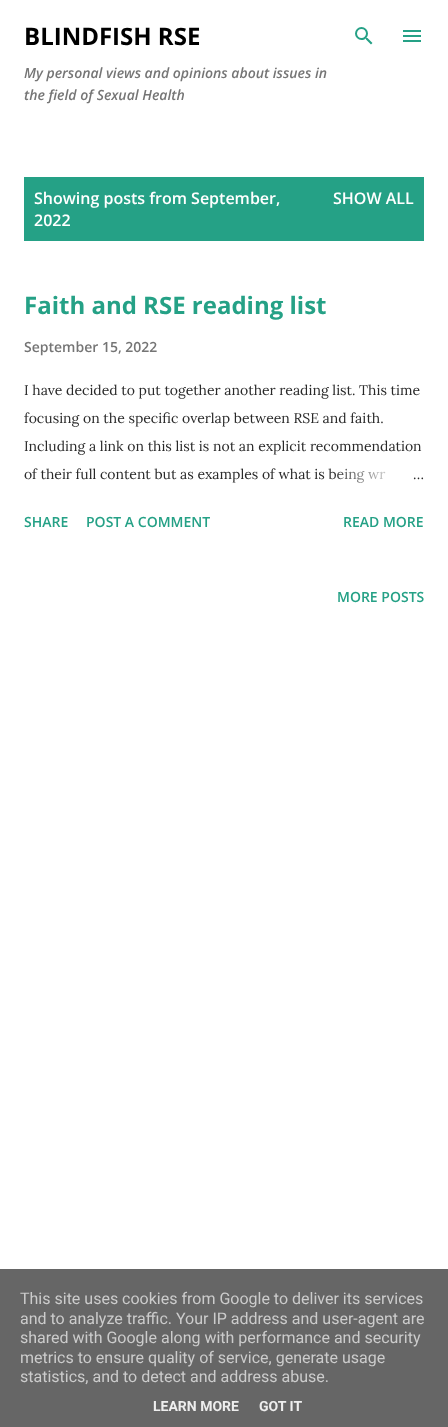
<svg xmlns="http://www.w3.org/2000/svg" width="448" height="1427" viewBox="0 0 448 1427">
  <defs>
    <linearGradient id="g1" gradientUnits="userSpaceOnUse" x1="424" y1="474" x2="328" y2="474"><stop offset="0" stop-color="rgb(255,255,255)"/><stop offset="0.2" stop-color="rgb(255,255,255)"/><stop offset="1" stop-color="rgb(255,255,255)" stop-opacity="0"/></linearGradient>
  </defs>
  <rect width="100%" height="100%" fill="rgb(255,255,255)"/>
  <text x="24" y="45" font-family="Open Sans" font-size="24" font-weight="bold" fill="rgb(0,0,0)">BLINDFISH RSE</text>
  <g font-family="Open Sans" font-size="14" font-weight="600" font-style="italic" fill="rgb(117,117,117)">
    <text>
      <tspan x="24" y="78">My personal views and opinions about issues in</tspan>
      <tspan x="24" y="100">the field of Sexual Health</tspan>
    </text>
  </g>
  <image x="355" y="27" width="18" height="18" href="pic1.png"/>
  <image x="403" y="30" width="18" height="12" href="pic2.png"/>
  <rect x="24" y="177" width="400" height="64" fill="rgb(37,161,134)"/>
  <g font-family="Open Sans" font-size="16" font-weight="600" fill="rgb(255,255,255)">
    <text>
      <tspan x="34" y="204">Showing posts from September,</tspan>
      <tspan x="34" y="226">2022</tspan>
    </text>
    <text x="333" y="204">SHOW ALL</text>
  </g>
  <text x="24" y="314" font-family="Open Sans" font-size="24" font-weight="bold" fill="rgb(37,161,134)">Faith and RSE reading list</text>
  <text x="24" y="352" font-family="Open Sans" font-size="14" font-weight="600" fill="rgb(117,117,117)">September 15, 2022</text>
  <g font-family="Lora" font-size="14" fill="rgb(41,41,41)">
    <text x="24" y="395">I have decided to put together another reading list. This time</text>
    <text x="24" y="423">focusing on the specific overlap between RSE and faith.</text>
    <text x="24" y="451">Including a link on this list is not an explicit recommendation</text>
    <text x="24" y="479">of their full content but as examples of what is being wr</text>
  </g>
  <rect x="330" y="468" width="56" height="15" fill="url(#g1)"/>
  <text x="413" y="479" font-family="Lora" font-size="14" fill="rgb(41,41,41)">…</text>
  <g font-family="Open Sans" font-size="14" font-weight="600" fill="rgb(37,161,134)">
    <text x="24" y="527">SHARE</text>
    <text x="86" y="527">POST A COMMENT</text>
    <text x="343" y="527">READ MORE</text>
    <text x="337" y="602">MORE POSTS</text>
  </g>
  <rect x="0" y="1269" width="448" height="158" fill="rgb(102,102,102)"/>
  <g font-family="Roboto" font-size="16" fill="rgb(204,204,204)">
    <text>
      <tspan x="20" y="1304">This site uses cookies from Google to deliver its services</tspan>
      <tspan x="20" y="1324">and to analyze traffic. Your IP address and user-agent are</tspan>
      <tspan x="20" y="1343">shared with Google along with performance and security</tspan>
      <tspan x="20" y="1363">metrics to ensure quality of service, generate usage</tspan>
      <tspan x="20" y="1382">statistics, and to detect and address abuse.</tspan>
    </text>
  </g>
  <g font-family="Roboto" font-size="14" font-weight="bold" fill="rgb(238,238,238)">
    <text x="153" y="1411">LEARN MORE</text>
    <text x="259" y="1411">GOT IT</text>
  </g>
</svg>
